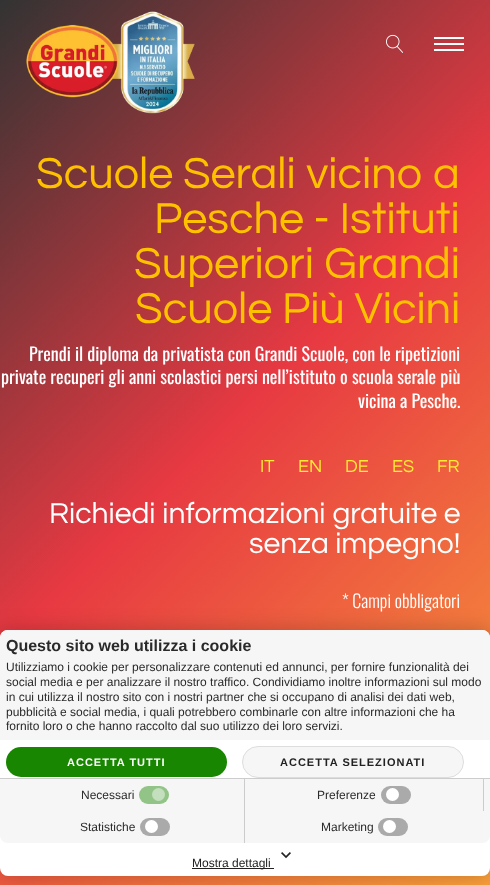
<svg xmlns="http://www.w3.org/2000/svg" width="490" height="885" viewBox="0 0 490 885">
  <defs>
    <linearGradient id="g1" gradientUnits="userSpaceOnUse" x1="-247" y1="247" x2="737" y2="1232"><stop offset="0" stop-color="rgb(51,51,51)"/><stop offset="0.33" stop-color="rgb(231,57,66)"/><stop offset="0.69" stop-color="rgb(249,157,58)"/><stop offset="1" stop-color="rgb(254,206,51)"/></linearGradient>
  </defs>
  <rect width="100%" height="100%" fill="rgb(255,255,255)"/>
  <rect x="0" y="0" width="490" height="885" fill="url(#g1)"/>
  <image x="26" y="11" width="169" height="103" href="pic1.png"/>
  <image x="386" y="34" width="17" height="19" href="pic2.png"/>
  <rect x="434" y="37" width="30" height="2" fill="rgb(255,255,255)"/>
  <rect x="434" y="43" width="30" height="2" fill="rgb(255,255,255)"/>
  <rect x="434" y="49" width="30" height="2" fill="rgb(255,255,255)"/>
  <g font-family="Questrial" font-size="45" fill="rgb(254,193,0)">
    <text x="36" y="188">Scuole Serali vicino a</text>
    <text x="154" y="233">Pesche - Istituti</text>
    <text x="134" y="278">Superiori Grandi</text>
    <text x="135" y="323">Scuole Più Vicini</text>
  </g>
  <g font-family="Oswald" font-size="18" fill="rgb(255,255,255)">
    <text x="29" y="361">Prendi il diploma da privatista con Grandi Scuole, con le ripetizioni</text>
    <text x="1" y="384">private recuperi gli anni scolastici persi nell’istituto o scuola serale più</text>
    <text x="358" y="408">vicina a Pesche.</text>
  </g>
  <g font-family="Questrial" font-size="18" fill="rgb(255,234,54)">
    <text x="260" y="472">IT</text>
    <text x="298" y="472">EN</text>
    <text x="345" y="472">DE</text>
    <text x="392" y="472">ES</text>
    <text x="437" y="472">FR</text>
  </g>
  <g font-family="Questrial" font-size="30" fill="rgb(255,255,255)">
    <text x="49" y="523">Richiedi informazioni gratuite e</text>
    <text x="249" y="553">senza impegno!</text>
  </g>
  <text x="342" y="608" font-family="Oswald" font-size="18" font-weight="300" fill="rgb(255,255,255)">* Campi obbligatori</text>
  <rect x="-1" y="629" width="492" height="248" rx="9" fill="rgba(0,0,0,0.2)" filter="blur(10px)"/>
  <rect x="0" y="630" width="490" height="246" rx="8" fill="rgb(255,255,255)"/>
  <path d="M8 630H482C486.5 630 490 633.5 490 638V740H0V638C0 633.5 3.5 630 8 630Z" fill="rgb(246,246,246)"/>
  <text x="6" y="651" font-family="Liberation Sans" font-size="16" font-weight="bold" fill="rgb(42,42,42)">Questo sito web utilizza i cookie</text>
  <g font-family="Liberation Sans" font-size="12" fill="rgb(42,42,42)">
    <text>
      <tspan x="6" y="671">Utilizziamo i cookie per personalizzare contenuti ed annunci, per fornire funzionalità dei</tspan>
      <tspan x="6" y="686">social media e per analizzare il nostro traffico. Condividiamo inoltre informazioni sul modo</tspan>
      <tspan x="6" y="701">in cui utilizza il nostro sito con i nostri partner che si occupano di analisi dei dati web,</tspan>
      <tspan x="6" y="716">pubblicità e social media, i quali potrebbero combinarle con altre informazioni che ha</tspan>
      <tspan x="6" y="730">fornito loro o che hanno raccolto dal suo utilizzo dei loro servizi.</tspan>
    </text>
  </g>
  <rect x="6" y="747" width="221" height="30" rx="15" fill="rgb(24,134,0)"/>
  <text x="67" y="766" font-family="Liberation Sans" font-size="11" font-weight="bold" letter-spacing="1" fill="rgb(255,255,255)">ACCETTA TUTTI</text>
  <rect x="242.5" y="746.5" width="221" height="31" rx="15.5" fill="rgb(246,246,246)" stroke="rgb(221,221,221)"/>
  <text x="280" y="766" font-family="Liberation Sans" font-size="11" font-weight="bold" letter-spacing="1" fill="rgb(34,34,34)">ACCETTA SELEZIONATI</text>
  <path d="M0 778H490V835C490 839.5 486.5 843 482 843H8C3.5 843 0 839.5 0 835Z" fill="rgb(246,246,246)"/>
  <rect x="0" y="778" width="490" height="1" fill="rgb(204,204,204)"/>
  <rect x="244" y="779" width="1" height="64" fill="rgb(204,204,204)"/>
  <text x="81" y="799" font-family="Liberation Sans" font-size="12" fill="rgb(42,42,42)">Necessari</text>
  <rect x="139" y="786" width="30" height="18" rx="9" fill="rgb(146,196,135)"/>
  <circle cx="158.5" cy="794.5" r="6.5" fill="rgb(195,223,189)"/>
  <rect x="483" y="779" width="1" height="32" fill="rgb(204,204,204)"/>
  <text x="317" y="799" font-family="Liberation Sans" font-size="12" fill="rgb(42,42,42)">Preferenze</text>
  <rect x="381" y="786" width="30" height="18" rx="9" fill="rgb(170,170,170)"/>
  <circle cx="392.5" cy="794.5" r="6.5" fill="rgb(255,255,255)"/>
  <text x="80" y="831" font-family="Liberation Sans" font-size="12" fill="rgb(42,42,42)">Statistiche</text>
  <rect x="140" y="818" width="30" height="18" rx="9" fill="rgb(170,170,170)"/>
  <circle cx="151.5" cy="826.5" r="6.5" fill="rgb(255,255,255)"/>
  <text x="321" y="831" font-family="Liberation Sans" font-size="12" fill="rgb(42,42,42)">Marketing</text>
  <rect x="378" y="818" width="30" height="18" rx="9" fill="rgb(170,170,170)"/>
  <circle cx="389.5" cy="826.5" r="6.5" fill="rgb(255,255,255)"/>
  <image x="281" y="852" width="10" height="7" href="pic3.png"/>
  <rect x="192" y="868" width="82" height="1" fill="rgb(34,34,34)"/>
  <text x="192" y="867" font-family="Liberation Sans" font-size="12" fill="rgb(34,34,34)">Mostra dettagli</text>
</svg>
